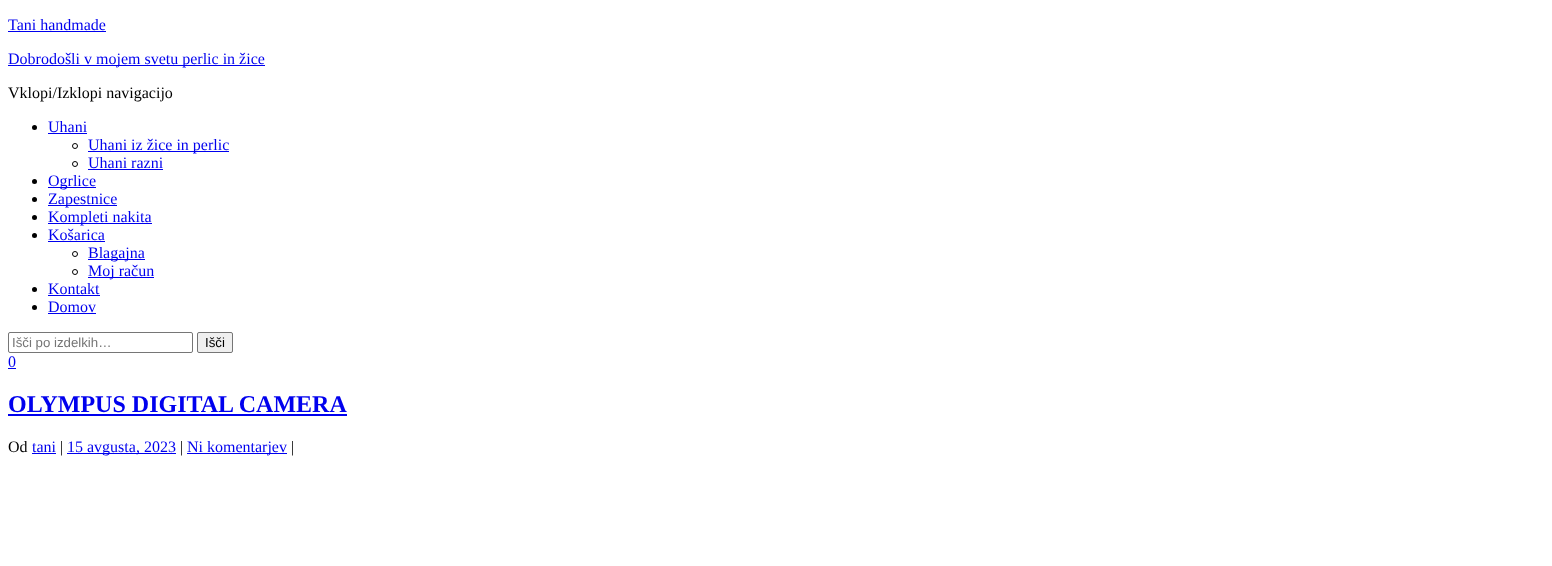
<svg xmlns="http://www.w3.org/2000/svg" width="1552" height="566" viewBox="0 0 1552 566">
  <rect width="100%" height="100%" fill="rgb(255,255,255)"/>
  <text x="8" y="30" font-family="Liberation Serif" font-size="16" fill="rgb(0,0,238)">Tani handmade</text>
  <rect x="8" y="31" width="98" height="1" fill="rgb(0,0,238)"/>
  <rect x="8" y="65" width="257" height="1" fill="rgb(0,0,238)"/>
  <text x="8" y="64" font-family="Liberation Serif" font-size="16" fill="rgb(0,0,238)">Dobrodošli v mojem svetu perlic in žice</text>
  <text x="8" y="98" font-family="Liberation Serif" font-size="16" fill="rgb(0,0,0)">Vklopi/Izklopi navigacijo</text>
  <circle cx="34.5" cy="127.5" r="2.5" fill="rgb(0,0,0)"/>
  <text x="48" y="132" font-family="Liberation Serif" font-size="16" fill="rgb(0,0,238)">Uhani</text>
  <rect x="48" y="133" width="39" height="1" fill="rgb(0,0,238)"/>
  <circle cx="75" cy="146" r="2.5" fill="none" stroke="rgb(0,0,0)"/>
  <rect x="88" y="151" width="141" height="1" fill="rgb(0,0,238)"/>
  <text x="88" y="150" font-family="Liberation Serif" font-size="16" fill="rgb(0,0,238)">Uhani iz žice in perlic</text>
  <circle cx="75" cy="164" r="2.5" fill="none" stroke="rgb(0,0,0)"/>
  <text x="88" y="168" font-family="Liberation Serif" font-size="16" fill="rgb(0,0,238)">Uhani razni</text>
  <rect x="88" y="169" width="75" height="1" fill="rgb(0,0,238)"/>
  <circle cx="34.5" cy="181.5" r="2.5" fill="rgb(0,0,0)"/>
  <rect x="48" y="187" width="48" height="1" fill="rgb(0,0,238)"/>
  <text x="48" y="186" font-family="Liberation Serif" font-size="16" fill="rgb(0,0,238)">Ogrlice</text>
  <circle cx="34.5" cy="199.5" r="2.5" fill="rgb(0,0,0)"/>
  <rect x="48" y="205" width="69" height="1" fill="rgb(0,0,238)"/>
  <text x="48" y="204" font-family="Liberation Serif" font-size="16" fill="rgb(0,0,238)">Zapestnice</text>
  <circle cx="34.5" cy="217.5" r="2.5" fill="rgb(0,0,0)"/>
  <rect x="48" y="223" width="104" height="1" fill="rgb(0,0,238)"/>
  <text x="48" y="222" font-family="Liberation Serif" font-size="16" fill="rgb(0,0,238)">Kompleti nakita</text>
  <circle cx="34.5" cy="235.5" r="2.5" fill="rgb(0,0,0)"/>
  <text x="48" y="240" font-family="Liberation Serif" font-size="16" fill="rgb(0,0,238)">Košarica</text>
  <rect x="48" y="241" width="57" height="1" fill="rgb(0,0,238)"/>
  <circle cx="75" cy="254" r="2.5" fill="none" stroke="rgb(0,0,0)"/>
  <rect x="88" y="259" width="57" height="1" fill="rgb(0,0,238)"/>
  <text x="88" y="258" font-family="Liberation Serif" font-size="16" fill="rgb(0,0,238)">Blagajna</text>
  <circle cx="75" cy="272" r="2.5" fill="none" stroke="rgb(0,0,0)"/>
  <rect x="88" y="277" width="66" height="1" fill="rgb(0,0,238)"/>
  <text x="88" y="276" font-family="Liberation Serif" font-size="16" fill="rgb(0,0,238)">Moj račun</text>
  <circle cx="34.5" cy="289.5" r="2.5" fill="rgb(0,0,0)"/>
  <text x="48" y="294" font-family="Liberation Serif" font-size="16" fill="rgb(0,0,238)">Kontakt</text>
  <rect x="48" y="295" width="52" height="1" fill="rgb(0,0,238)"/>
  <circle cx="34.5" cy="307.5" r="2.5" fill="rgb(0,0,0)"/>
  <text x="48" y="312" font-family="Liberation Serif" font-size="16" fill="rgb(0,0,238)">Domov</text>
  <rect x="48" y="313" width="48" height="1" fill="rgb(0,0,238)"/>
  <rect x="8.5" y="332.5" width="184" height="20" rx="1.5" fill="none" stroke="rgb(118,118,118)"/>
  <text x="12" y="347" font-family="Liberation Sans" font-size="13.25" fill="rgb(117,117,117)">Išči po izdelkih…</text>
  <rect x="197.5" y="332.5" width="35" height="20" rx="1.5" fill="rgb(239,239,239)" stroke="rgb(118,118,118)"/>
  <text x="205" y="347" font-family="Liberation Sans" font-size="13.25" fill="rgb(0,0,0)">Išči</text>
  <text x="8" y="367" font-family="Liberation Serif" font-size="16" fill="rgb(0,0,238)">0</text>
  <rect x="8" y="368" width="8" height="1" fill="rgb(0,0,238)"/>
  <text x="8" y="412" font-family="Liberation Serif" font-size="24" font-weight="bold" fill="rgb(0,0,238)">OLYMPUS DIGITAL CAMERA</text>
  <rect x="8" y="414" width="339" height="2" fill="rgb(0,0,238)"/>
  <text x="8" y="452" font-family="Liberation Serif" font-size="16" fill="rgb(0,0,0)">Od</text>
  <text x="32" y="452" font-family="Liberation Serif" font-size="16" fill="rgb(0,0,238)">tani</text>
  <rect x="32" y="453" width="24" height="1" fill="rgb(0,0,238)"/>
  <text x="60" y="452" font-family="Liberation Serif" font-size="16" fill="rgb(0,0,0)">|</text>
  <rect x="67" y="453" width="109" height="1" fill="rgb(0,0,238)"/>
  <text x="67" y="452" font-family="Liberation Serif" font-size="16" fill="rgb(0,0,238)">15 avgusta, 2023</text>
  <text x="180" y="452" font-family="Liberation Serif" font-size="16" fill="rgb(0,0,0)">|</text>
  <rect x="187" y="453" width="100" height="1" fill="rgb(0,0,238)"/>
  <text x="187" y="452" font-family="Liberation Serif" font-size="16" fill="rgb(0,0,238)">Ni komentarjev</text>
  <text x="291" y="452" font-family="Liberation Serif" font-size="16" fill="rgb(0,0,0)">|</text>
</svg>
